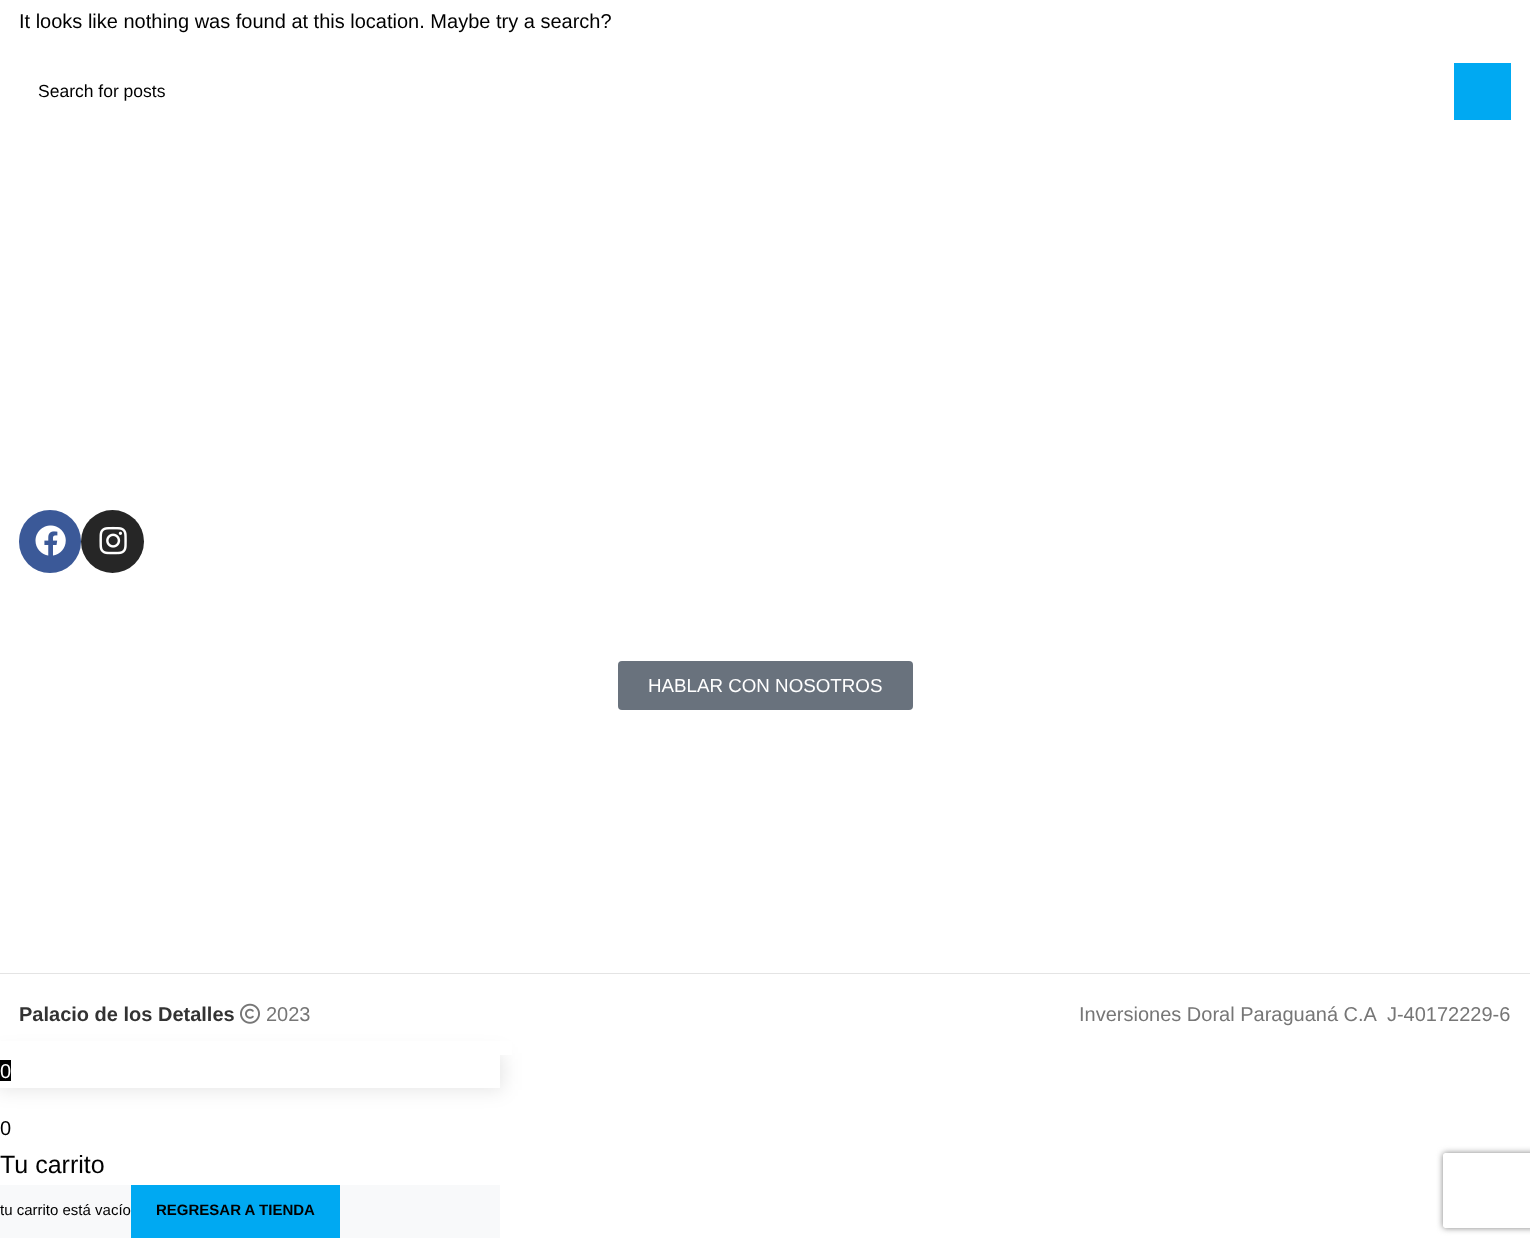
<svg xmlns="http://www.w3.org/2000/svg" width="1530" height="1245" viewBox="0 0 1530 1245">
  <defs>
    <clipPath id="clip1"><path d="M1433 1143H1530V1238H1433ZM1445.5 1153H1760.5C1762 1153 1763 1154 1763 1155.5V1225.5C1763 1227 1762 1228 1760.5 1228H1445.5C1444 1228 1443 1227 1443 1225.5V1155.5C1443 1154 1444 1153 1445.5 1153Z" clip-rule="evenodd"/></clipPath>
  </defs>
  <rect width="100%" height="100%" fill="rgb(255,255,255)"/>
  <rect x="-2" y="1053" width="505" height="37" fill="rgba(0,0,0,0.1)" filter="blur(9.5px)"/>
  <rect x="0" y="1041" width="512" height="14" fill="rgb(255,255,255)"/>
  <text x="19" y="28" font-family="Liberation Sans" font-size="20" fill="rgb(0,0,0)">It looks like nothing was found at this location. Maybe try a search?</text>
  <text x="38" y="97" font-family="Liberation Sans" font-size="17.5" fill="rgb(0,0,0)">Search for posts</text>
  <rect x="1454" y="63" width="57" height="57" fill="rgb(0,169,242)"/>
  <rect x="19" y="510" width="62" height="63" rx="31" fill="rgb(59,89,152)"/>
  <image x="35" y="525" width="31" height="31" href="pic1.png"/>
  <circle cx="112.5" cy="541.5" r="31.5" fill="rgb(38,38,38)"/>
  <image x="99" y="526" width="28" height="29" href="pic2.png"/>
  <rect x="618" y="661" width="295" height="49" rx="4" fill="rgb(105,114,125)"/>
  <text x="648" y="692" font-family="Liberation Sans" font-size="18.75" fill="rgb(255,255,255)">HABLAR CON NOSOTROS</text>
  <rect x="0" y="973" width="1530" height="1" fill="rgb(228,228,228)"/>
  <text x="19" y="1021" font-family="Liberation Sans" font-size="20" font-weight="bold" fill="rgb(51,51,51)">Palacio de los Detalles</text>
  <image x="240" y="1003" width="20" height="21" href="pic3.png"/>
  <g font-family="Liberation Sans" font-size="20" fill="rgb(118,118,118)">
    <text x="266" y="1021">2023</text>
    <text x="1079" y="1021" xml:space="preserve">Inversiones Doral Paraguaná C.A  J-40172229-6</text>
  </g>
  <rect x="0" y="1055" width="500" height="33" fill="rgb(255,255,255)"/>
  <rect x="0" y="1060" width="11" height="21" fill="rgb(0,0,0)"/>
  <text x="0" y="1078" font-family="Liberation Sans" font-size="20" fill="rgb(255,255,255)">0</text>
  <text x="0" y="1135" font-family="Liberation Sans" font-size="20" fill="rgb(0,0,0)">0</text>
  <text x="0" y="1173" font-family="Liberation Sans" font-size="25" fill="rgb(0,0,0)">Tu carrito</text>
  <rect x="0" y="1185" width="500" height="53" fill="rgb(248,249,250)"/>
  <text x="0" y="1215" font-family="Liberation Sans" font-size="15" fill="rgb(0,0,0)">tu carrito está vacío</text>
  <rect x="131" y="1185" width="209" height="53" fill="rgb(0,169,242)"/>
  <text x="156" y="1215" font-family="Liberation Sans" font-size="15" font-weight="bold" fill="rgb(0,0,0)">REGRESAR A TIENDA</text>
  <g clip-path="url(#clip1)">
    <rect x="1443" y="1153" width="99" height="75" rx="2.5" fill="rgb(128,128,128)" filter="blur(3px)"/>
  </g>
</svg>
